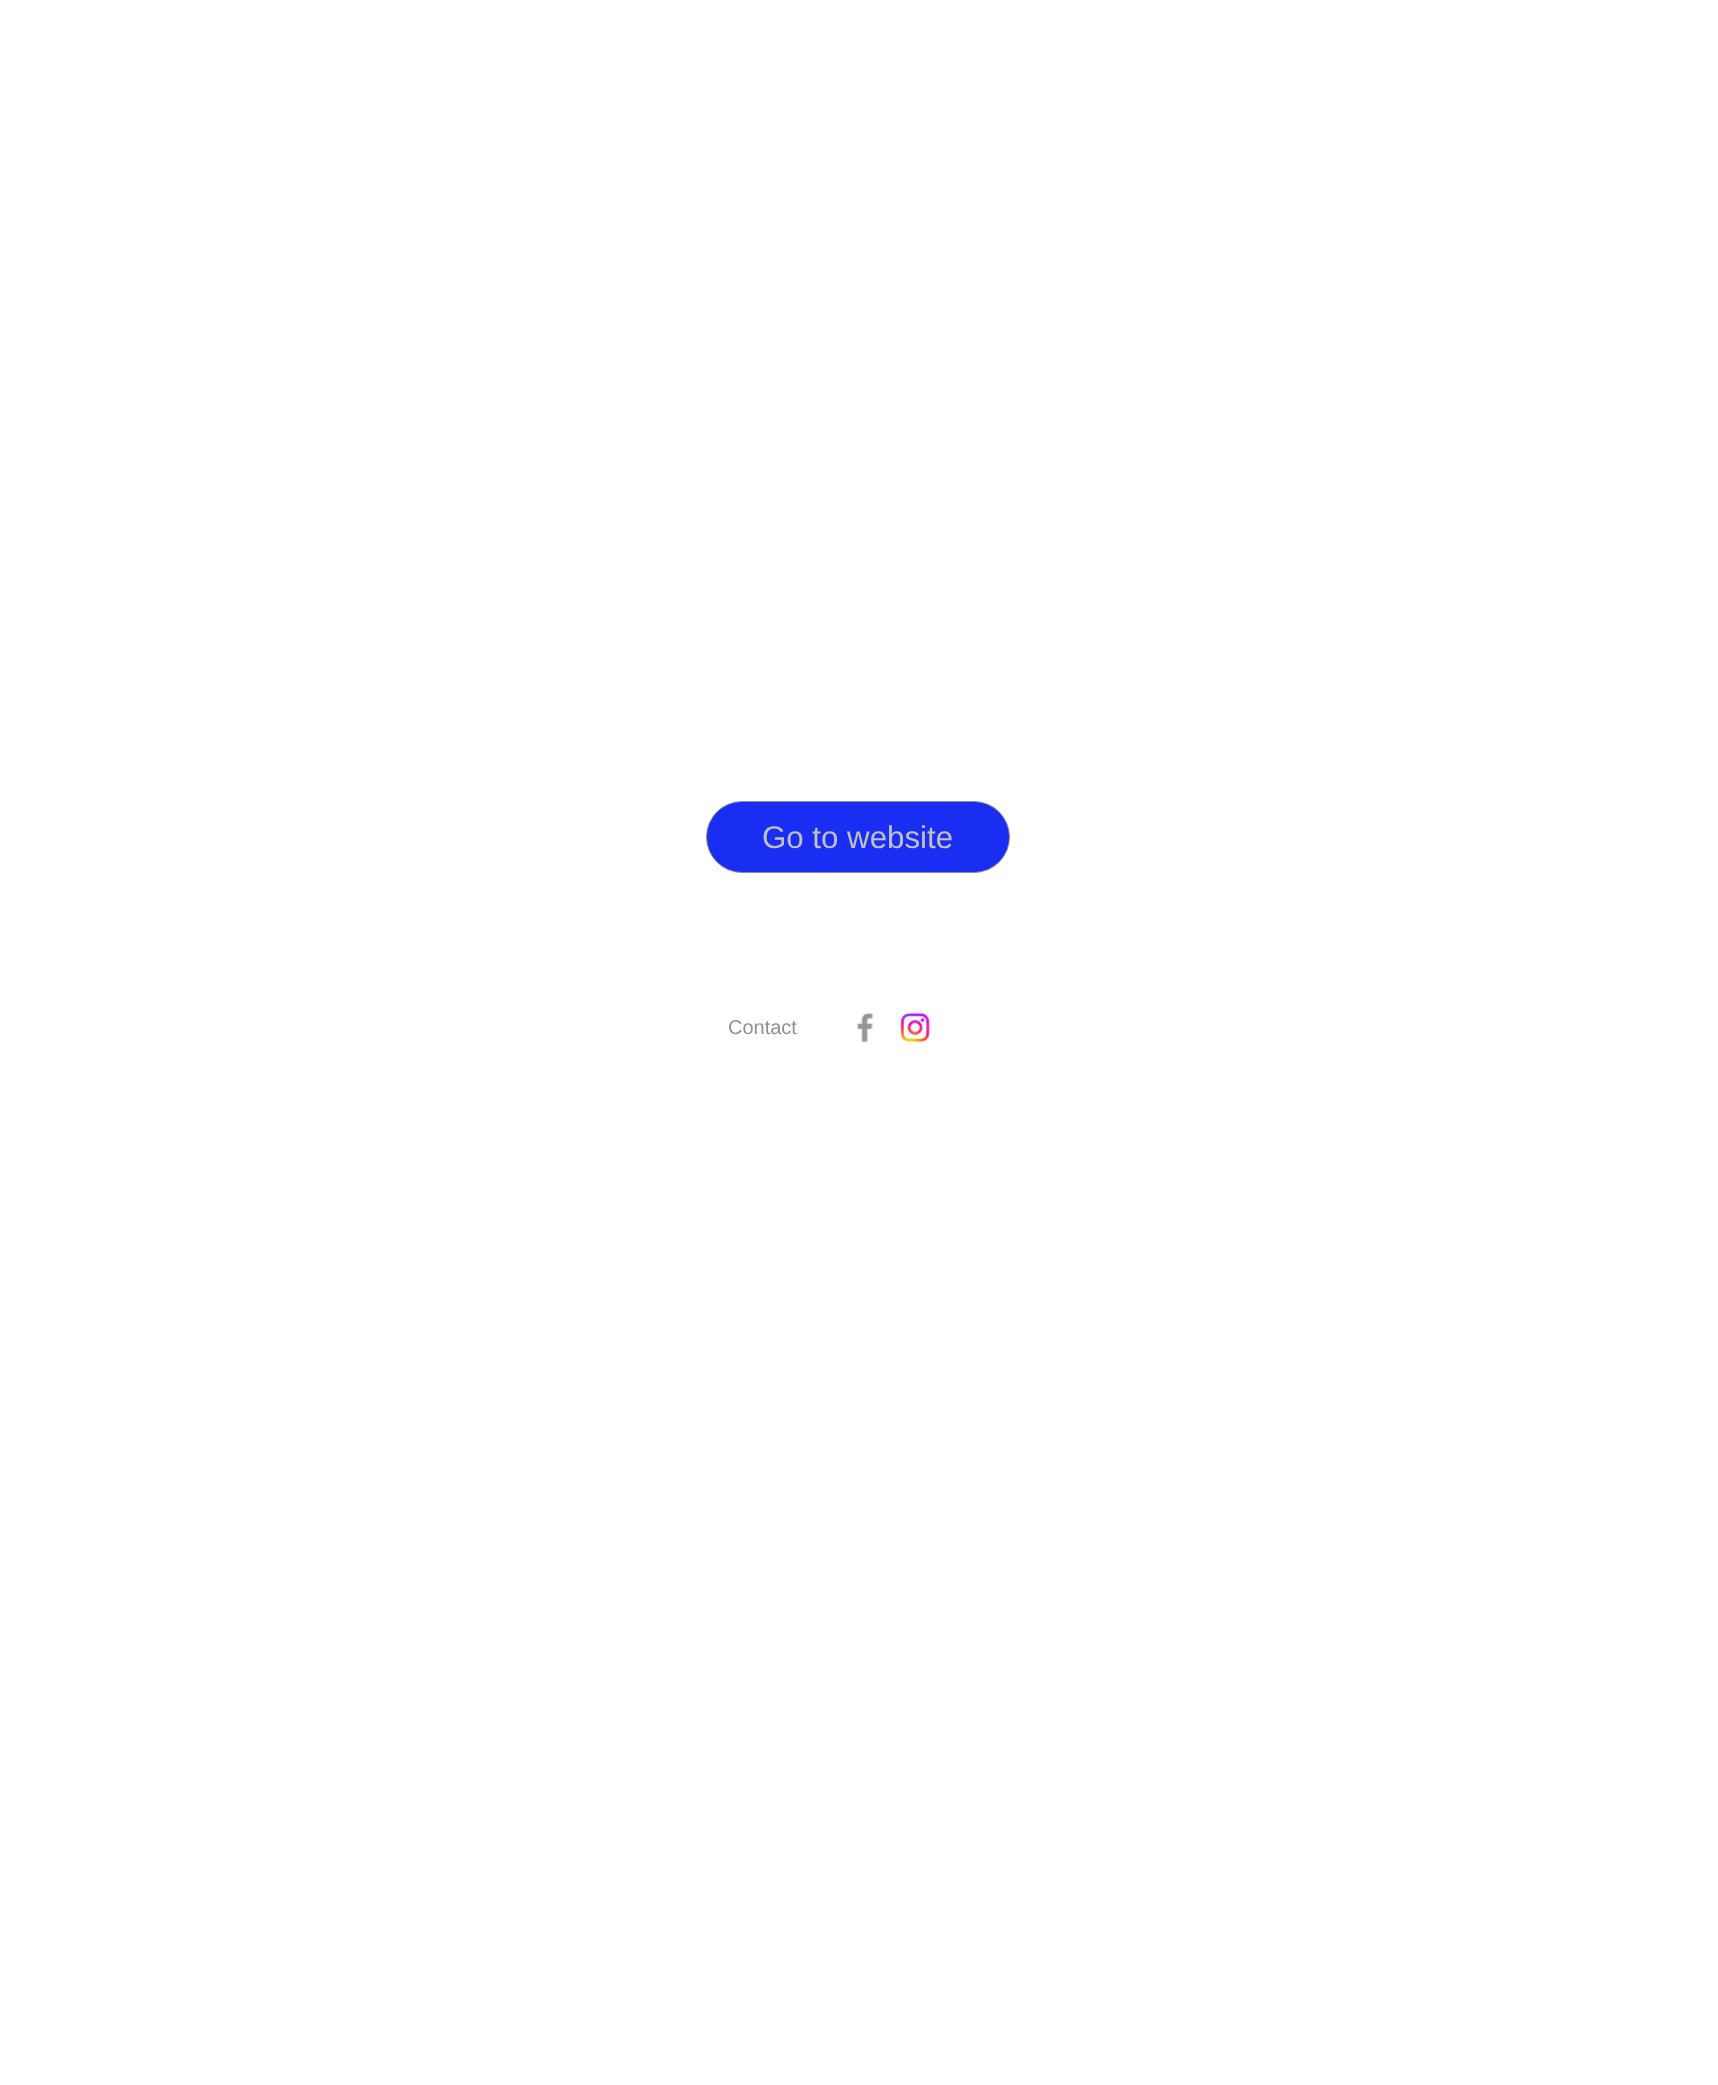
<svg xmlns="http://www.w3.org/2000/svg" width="1718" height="2085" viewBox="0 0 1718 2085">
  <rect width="100%" height="100%" fill="rgb(255,255,255)"/>
  <rect x="706.5" y="801.5" width="303" height="71" rx="35.5" fill="rgb(26,45,243)" stroke="rgb(144,144,144)"/>
  <text x="762" y="848" font-family="Liberation Sans" font-size="31.25" fill="rgb(192,192,192)">Go to website</text>
  <text x="728" y="1034" font-family="Liberation Sans" font-size="20" fill="rgb(144,144,144)">Contact</text>
  <image x="857" y="1012" width="16" height="31" href="pic1.png"/>
  <image x="900" y="1012" width="31" height="31" href="pic2.png"/>
</svg>
